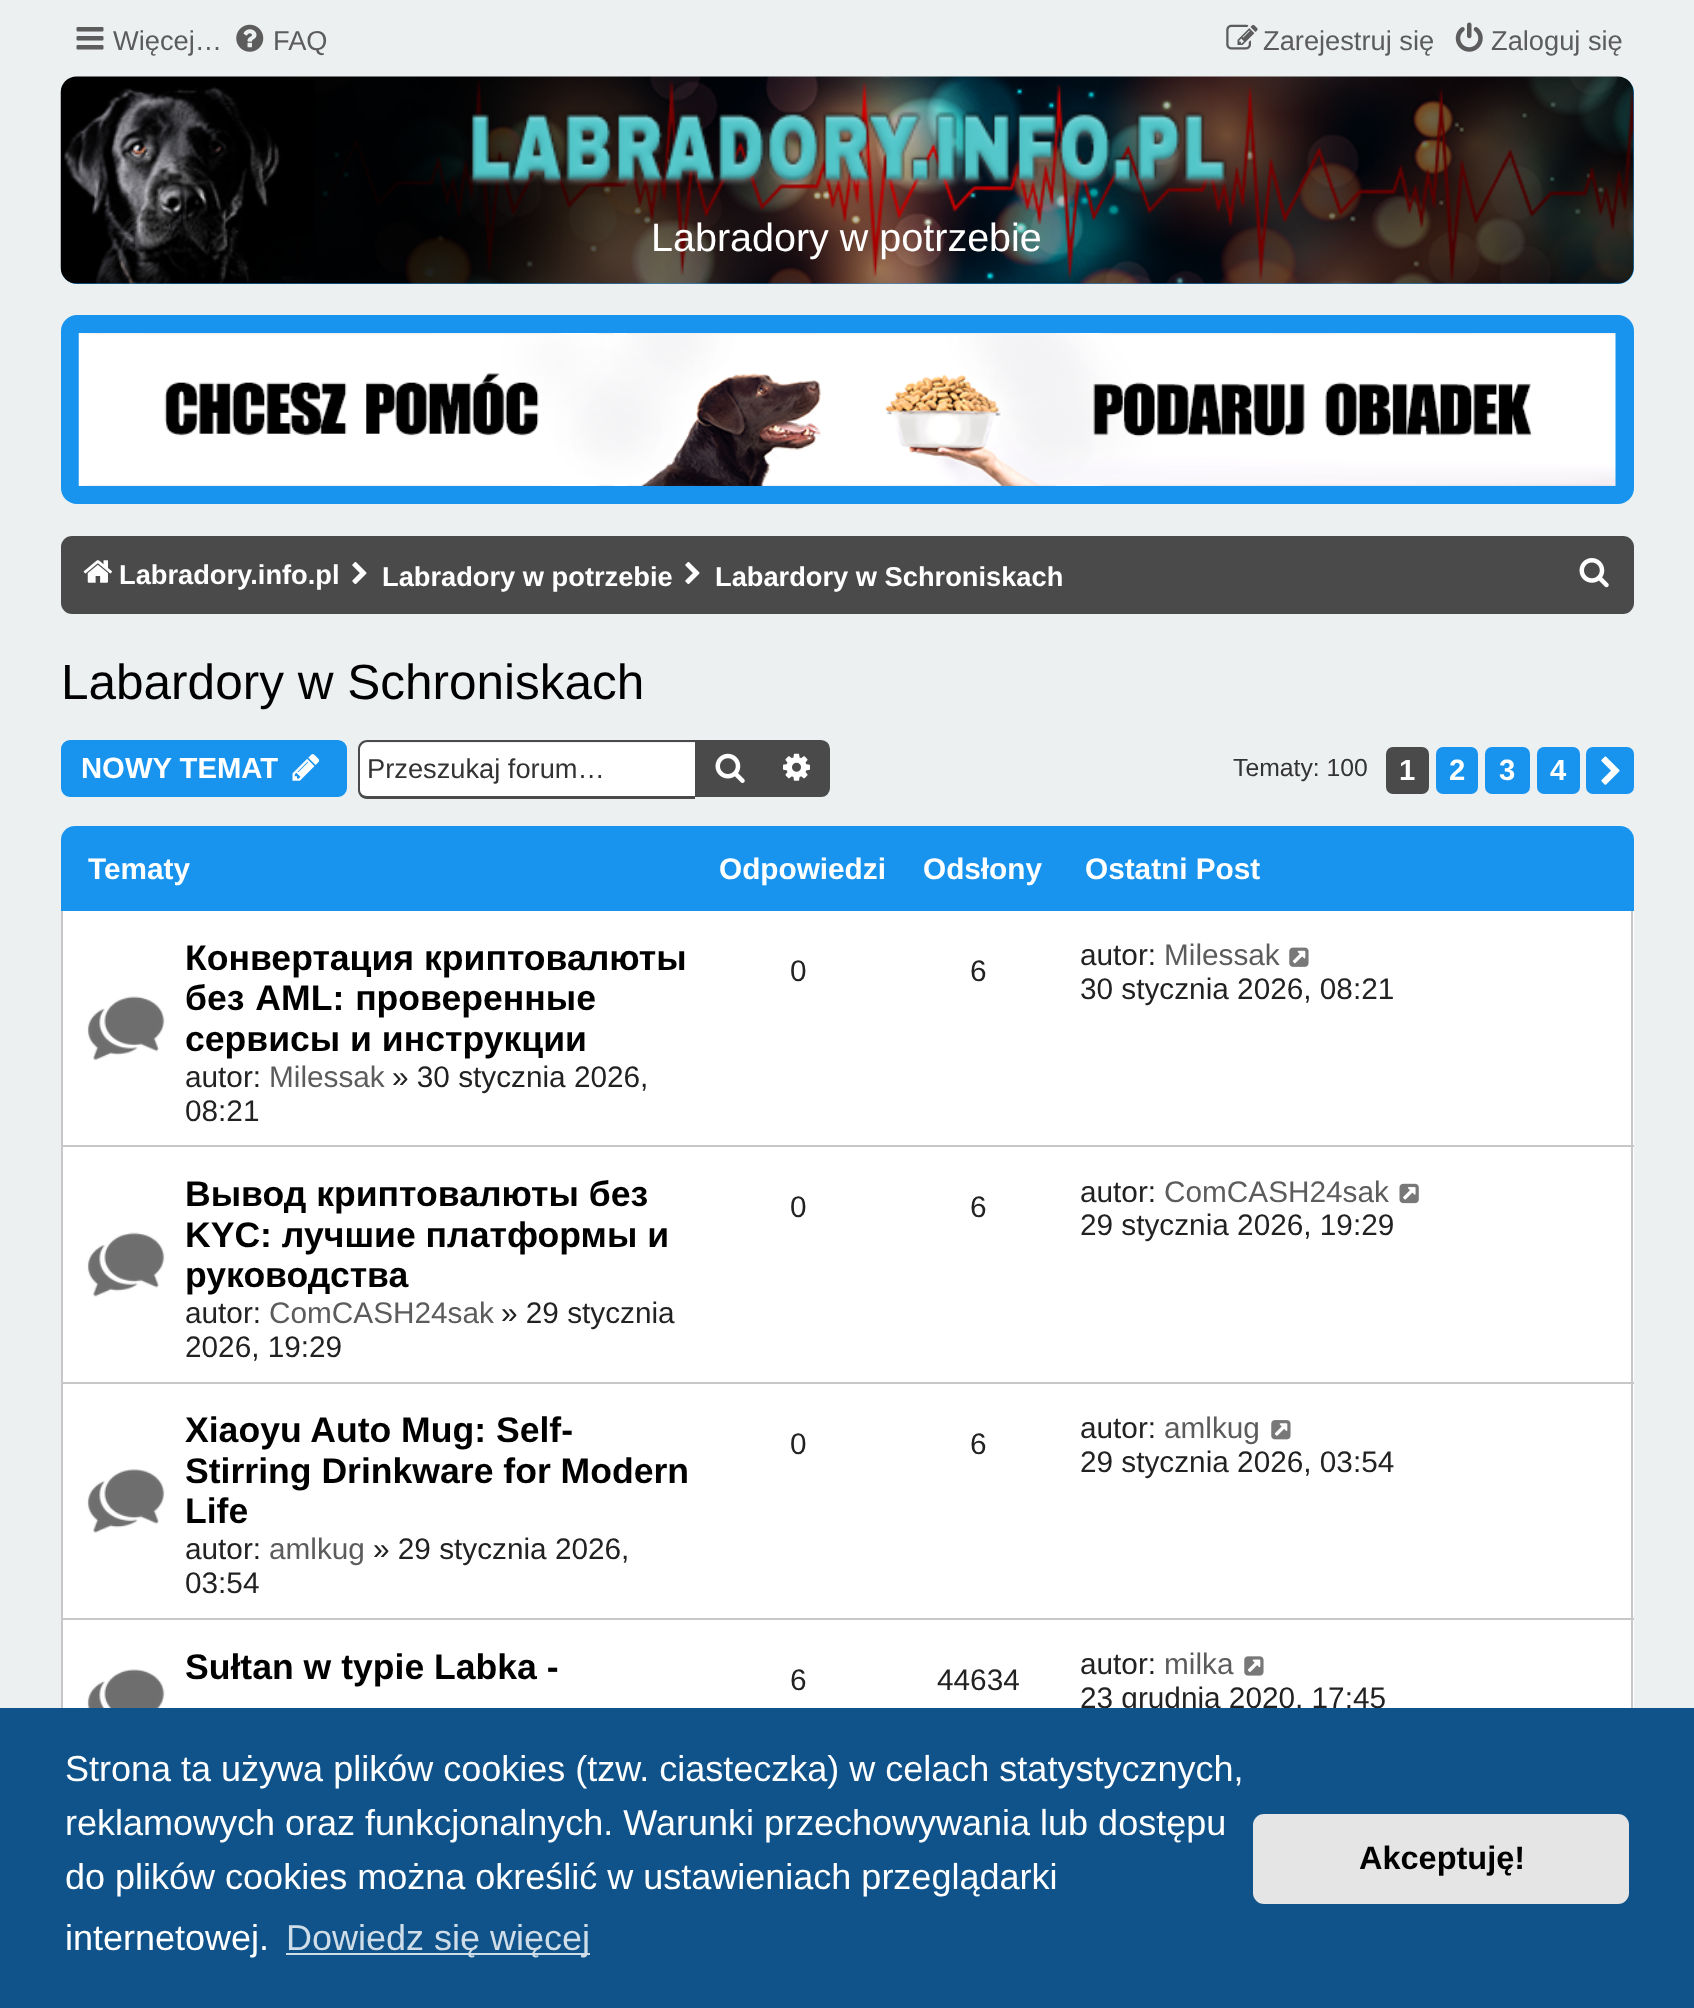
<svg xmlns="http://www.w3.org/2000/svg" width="1694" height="2008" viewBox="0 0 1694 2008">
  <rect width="100%" height="100%" fill="rgb(236,240,241)"/>
  <image x="76" y="27" width="28" height="23" href="pic1.png"/>
  <text x="113" y="50" font-family="Liberation Sans" font-size="27.25" fill="rgb(92,92,92)">Więcej…</text>
  <image x="236" y="24" width="28" height="28" href="pic2.png"/>
  <text x="273" y="50" font-family="Liberation Sans" font-size="27.25" fill="rgb(92,92,92)">FAQ</text>
  <image x="1226" y="24" width="32" height="26" href="pic3.png"/>
  <text x="1263" y="50" font-family="Liberation Sans" font-size="27.25" fill="rgb(92,92,92)">Zarejestruj się</text>
  <image x="1455" y="22" width="28" height="30" href="pic4.png"/>
  <text x="1491" y="50" font-family="Liberation Sans" font-size="27.25" fill="rgb(92,92,92)">Zaloguj się</text>
  <rect x="61" y="77" width="1573" height="207" rx="16" fill="rgb(24,148,239)"/>
  <image x="60" y="76" width="1574" height="208" href="pic5.png"/>
  <image x="469" y="110" width="758" height="76" href="pic6.png"/>
  <text x="651" y="251" font-family="Liberation Sans" font-size="39.5" fill="rgb(255,255,255)">Labradory w potrzebie</text>
  <rect x="61" y="315" width="1573" height="189" rx="16" fill="rgb(24,148,239)"/>
  <image x="78" y="333" width="1538" height="153" href="pic7.png"/>
  <rect x="61" y="536" width="1573" height="78" rx="11" fill="rgb(74,74,74)"/>
  <image x="83" y="560" width="29" height="23" href="pic8.png"/>
  <text x="119" y="584" font-family="Liberation Sans" font-size="27.25" font-weight="bold" fill="rgb(255,255,255)">Labradory.info.pl</text>
  <image x="352" y="561" width="15" height="24" href="pic9.png"/>
  <text x="382" y="586" font-family="Liberation Sans" font-size="27.25" font-weight="bold" fill="rgb(255,255,255)">Labradory w potrzebie</text>
  <image x="685" y="561" width="15" height="24" href="pic9.png"/>
  <text x="715" y="586" font-family="Liberation Sans" font-size="27.25" font-weight="bold" fill="rgb(255,255,255)">Labardory w Schroniskach</text>
  <image x="1579" y="558" width="30" height="30" href="pic10.png"/>
  <text x="61" y="699" font-family="Liberation Sans" font-size="49.5" fill="rgb(0,0,0)">Labardory w Schroniskach</text>
  <rect x="62" y="741" width="284" height="55" rx="8" fill="rgb(24,148,239)" stroke="rgb(24,148,239)" stroke-width="2"/>
  <text x="81" y="778" font-family="Liberation Sans" font-size="29.25" font-weight="bold" fill="rgb(255,255,255)">NOWY TEMAT</text>
  <image x="292" y="754" width="28" height="27" href="pic11.png"/>
  <path d="M367 743H695V797H367C363 797 360 794 360 790V750C360 746 363 743 367 743Z" fill="rgb(255,255,255)"/>
  <path d="M367 740H695V799H367C362 799 358 795 358 790V749C358 744 362 740 367 740ZM367 742H695V796H367C363 796 360 793 360 790V749C360 746 363 742 367 742Z" fill="rgb(74,74,74)" fill-rule="evenodd"/>
  <text x="367" y="778" font-family="Liberation Sans" font-size="27.25" fill="rgb(51,51,51)">Przeszukaj forum…</text>
  <rect x="695" y="740" width="68" height="57" fill="rgb(74,74,74)"/>
  <image x="715" y="753" width="30" height="30" href="pic12.png"/>
  <path d="M764 741H821C825.5 741 829 744.5 829 749V788C829 792.5 825.5 796 821 796H764Z" fill="rgb(74,74,74)" stroke="rgb(74,74,74)" stroke-width="2"/>
  <image x="783" y="753" width="27" height="28" href="pic13.png"/>
  <text x="1233" y="776" font-family="Liberation Sans" font-size="24.75" fill="rgb(51,51,51)">Tematy: 100</text>
  <rect x="1387" y="748" width="41" height="45" rx="6" fill="rgb(74,74,74)" stroke="rgb(74,74,74)" stroke-width="2"/>
  <text x="1399" y="780" font-family="Liberation Sans" font-size="29.25" font-weight="bold" fill="rgb(255,255,255)">1</text>
  <rect x="1437" y="748" width="40" height="45" rx="6" fill="rgb(24,148,239)" stroke="rgb(24,148,239)" stroke-width="2"/>
  <text x="1449" y="780" font-family="Liberation Sans" font-size="29.25" font-weight="bold" fill="rgb(255,255,255)">2</text>
  <rect x="1486" y="748" width="43" height="45" rx="6" fill="rgb(24,148,239)" stroke="rgb(24,148,239)" stroke-width="2"/>
  <text x="1499" y="780" font-family="Liberation Sans" font-size="29.25" font-weight="bold" fill="rgb(255,255,255)">3</text>
  <rect x="1538" y="748" width="41" height="45" rx="6" fill="rgb(24,148,239)" stroke="rgb(24,148,239)" stroke-width="2"/>
  <text x="1550" y="780" font-family="Liberation Sans" font-size="29.25" font-weight="bold" fill="rgb(255,255,255)">4</text>
  <rect x="1587" y="748" width="46" height="45" rx="6" fill="rgb(24,148,239)" stroke="rgb(24,148,239)" stroke-width="2"/>
  <image x="1601" y="756" width="19" height="29" href="pic14.png"/>
  <rect x="61" y="826" width="1573" height="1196" rx="14" fill="rgb(24,148,239)"/>
  <g font-family="Liberation Sans" font-size="29.75" font-weight="bold" fill="rgb(255,255,255)">
    <text x="88" y="879">Tematy</text>
    <text x="719" y="879">Odpowiedzi</text>
    <text x="923" y="879">Odsłony</text>
    <text x="1085" y="879">Ostatni Post</text>
  </g>
  <rect x="63" y="911" width="1571" height="471" fill="rgb(255,255,255)"/>
  <rect x="1631" y="911" width="2" height="473" fill="rgb(199,199,199)"/>
  <rect x="61" y="1145" width="1573" height="2" fill="rgb(199,199,199)"/>
  <rect x="61" y="911" width="2" height="237" fill="rgb(199,199,199)"/>
  <image x="87" y="996" width="78" height="65" href="pic15.png"/>
  <g font-family="Liberation Sans" font-size="35.6" font-weight="bold" fill="rgb(0,0,0)">
    <text>
      <tspan x="185" y="970">Конвертация криптовалюты</tspan>
      <tspan x="185" y="1010" word-spacing="1">без AML: проверенные</tspan>
      <tspan x="185" y="1051">сервисы и инструкции</tspan>
    </text>
  </g>
  <text x="185" y="1087" font-family="Liberation Sans" font-size="29.75" fill="rgb(34,34,34)">autor:</text>
  <text x="269" y="1087" font-family="Liberation Sans" font-size="29.75" fill="rgb(92,92,92)">Milessak</text>
  <g font-family="Liberation Sans" font-size="29.75" fill="rgb(34,34,34)">
    <text x="392" y="1087">» 30 stycznia 2026,</text>
    <text x="185" y="1121">08:21</text>
    <text x="790" y="981">0</text>
    <text x="970" y="981">6</text>
    <text x="1080" y="965">autor:</text>
  </g>
  <text x="1164" y="965" font-family="Liberation Sans" font-size="29.75" fill="rgb(92,92,92)">Milessak</text>
  <image x="1289" y="947" width="20" height="20" href="pic16.png"/>
  <text x="1080" y="999" font-family="Liberation Sans" font-size="29.75" fill="rgb(34,34,34)">30 stycznia 2026, 08:21</text>
  <rect x="61" y="1382" width="1573" height="2" fill="rgb(199,199,199)"/>
  <rect x="61" y="1148" width="2" height="236" fill="rgb(199,199,199)"/>
  <image x="87" y="1232" width="78" height="65" href="pic17.png"/>
  <g font-family="Liberation Sans" font-size="35.6" font-weight="bold" fill="rgb(0,0,0)">
    <text>
      <tspan x="185" y="1206">Вывод криптовалюты без</tspan>
      <tspan x="185" y="1247">KYC: лучшие платформы и</tspan>
      <tspan x="185" y="1287">руководства</tspan>
    </text>
  </g>
  <text x="185" y="1323" font-family="Liberation Sans" font-size="29.75" fill="rgb(34,34,34)">autor:</text>
  <text x="269" y="1323" font-family="Liberation Sans" font-size="29.75" fill="rgb(92,92,92)">ComCASH24sak</text>
  <g font-family="Liberation Sans" font-size="29.75" fill="rgb(34,34,34)">
    <text x="501" y="1323">» 29 stycznia</text>
    <text x="185" y="1357">2026, 19:29</text>
    <text x="790" y="1217">0</text>
    <text x="970" y="1217">6</text>
    <text x="1080" y="1202">autor:</text>
  </g>
  <text x="1164" y="1202" font-family="Liberation Sans" font-size="29.75" fill="rgb(92,92,92)">ComCASH24sak</text>
  <image x="1399" y="1183" width="20" height="21" href="pic18.png"/>
  <text x="1080" y="1235" font-family="Liberation Sans" font-size="29.75" fill="rgb(34,34,34)">29 stycznia 2026, 19:29</text>
  <rect x="63" y="1384" width="1571" height="234" fill="rgb(255,255,255)"/>
  <rect x="1631" y="1384" width="2" height="236" fill="rgb(199,199,199)"/>
  <rect x="61" y="1618" width="1573" height="2" fill="rgb(199,199,199)"/>
  <rect x="61" y="1384" width="2" height="324" fill="rgb(199,199,199)"/>
  <image x="87" y="1469" width="78" height="64" href="pic19.png"/>
  <g font-family="Liberation Sans" font-size="35.6" font-weight="bold" fill="rgb(0,0,0)">
    <text>
      <tspan x="185" y="1442">Xiaoyu Auto Mug: Self-</tspan>
      <tspan x="185" y="1483">Stirring Drinkware for Modern</tspan>
      <tspan x="185" y="1523">Life</tspan>
    </text>
  </g>
  <text x="185" y="1559" font-family="Liberation Sans" font-size="29.75" fill="rgb(34,34,34)">autor:</text>
  <text x="269" y="1559" font-family="Liberation Sans" font-size="29.75" fill="rgb(92,92,92)">amlkug</text>
  <g font-family="Liberation Sans" font-size="29.75" fill="rgb(34,34,34)">
    <text x="373" y="1559">» 29 stycznia 2026,</text>
    <text x="185" y="1593">03:54</text>
    <text x="790" y="1454">0</text>
    <text x="970" y="1454">6</text>
    <text x="1080" y="1438">autor:</text>
  </g>
  <text x="1164" y="1438" font-family="Liberation Sans" font-size="29.75" fill="rgb(92,92,92)">amlkug</text>
  <image x="1271" y="1420" width="20" height="20" href="pic20.png"/>
  <text x="1080" y="1472" font-family="Liberation Sans" font-size="29.75" fill="rgb(34,34,34)">29 stycznia 2026, 03:54</text>
  <rect x="63" y="1620" width="1571" height="88" fill="rgb(255,255,255)"/>
  <rect x="1631" y="1620" width="2" height="88" fill="rgb(199,199,199)"/>
  <image x="87" y="1669" width="78" height="39" href="pic21.png"/>
  <text x="185" y="1679" font-family="Liberation Sans" font-size="35.6" font-weight="bold" fill="rgb(0,0,0)">Sułtan w typie Labka -</text>
  <g font-family="Liberation Sans" font-size="29.75" fill="rgb(34,34,34)">
    <text x="790" y="1690">6</text>
    <text x="937" y="1690">44634</text>
    <text x="1080" y="1674">autor:</text>
  </g>
  <text x="1164" y="1674" font-family="Liberation Sans" font-size="29.75" fill="rgb(92,92,92)">milka</text>
  <image x="1244" y="1656" width="20" height="20" href="pic22.png"/>
  <text x="1080" y="1708" font-family="Liberation Sans" font-size="29.75" fill="rgb(34,34,34)">23 grudnia 2020, 17:45</text>
  <rect x="0" y="1708" width="1694" height="300" fill="rgb(15,83,138)"/>
  <g font-family="Liberation Sans" font-size="36" fill="rgb(255,255,255)">
    <text>
      <tspan x="65" y="1781">Strona ta używa plików cookies (tzw. ciasteczka) w celach statystycznych,</tspan>
      <tspan x="65" y="1835">reklamowych oraz funkcjonalnych. Warunki przechowywania lub dostępu</tspan>
      <tspan x="65" y="1889">do plików cookies można określić w ustawieniach przeglądarki</tspan>
      <tspan x="65" y="1950">internetowej.</tspan>
    </text>
  </g>
  <rect x="286" y="1953" width="304" height="2" fill="rgb(207,221,232)"/>
  <text x="286" y="1950" font-family="Liberation Sans" font-size="36" fill="rgb(207,221,232)">Dowiedz się więcej</text>
  <rect x="1253" y="1814" width="376" height="90" rx="11" fill="rgb(229,229,229)"/>
  <text x="1359" y="1869" font-family="Liberation Sans" font-size="32.5" font-weight="bold" fill="rgb(0,0,0)">Akceptuję!</text>
</svg>
